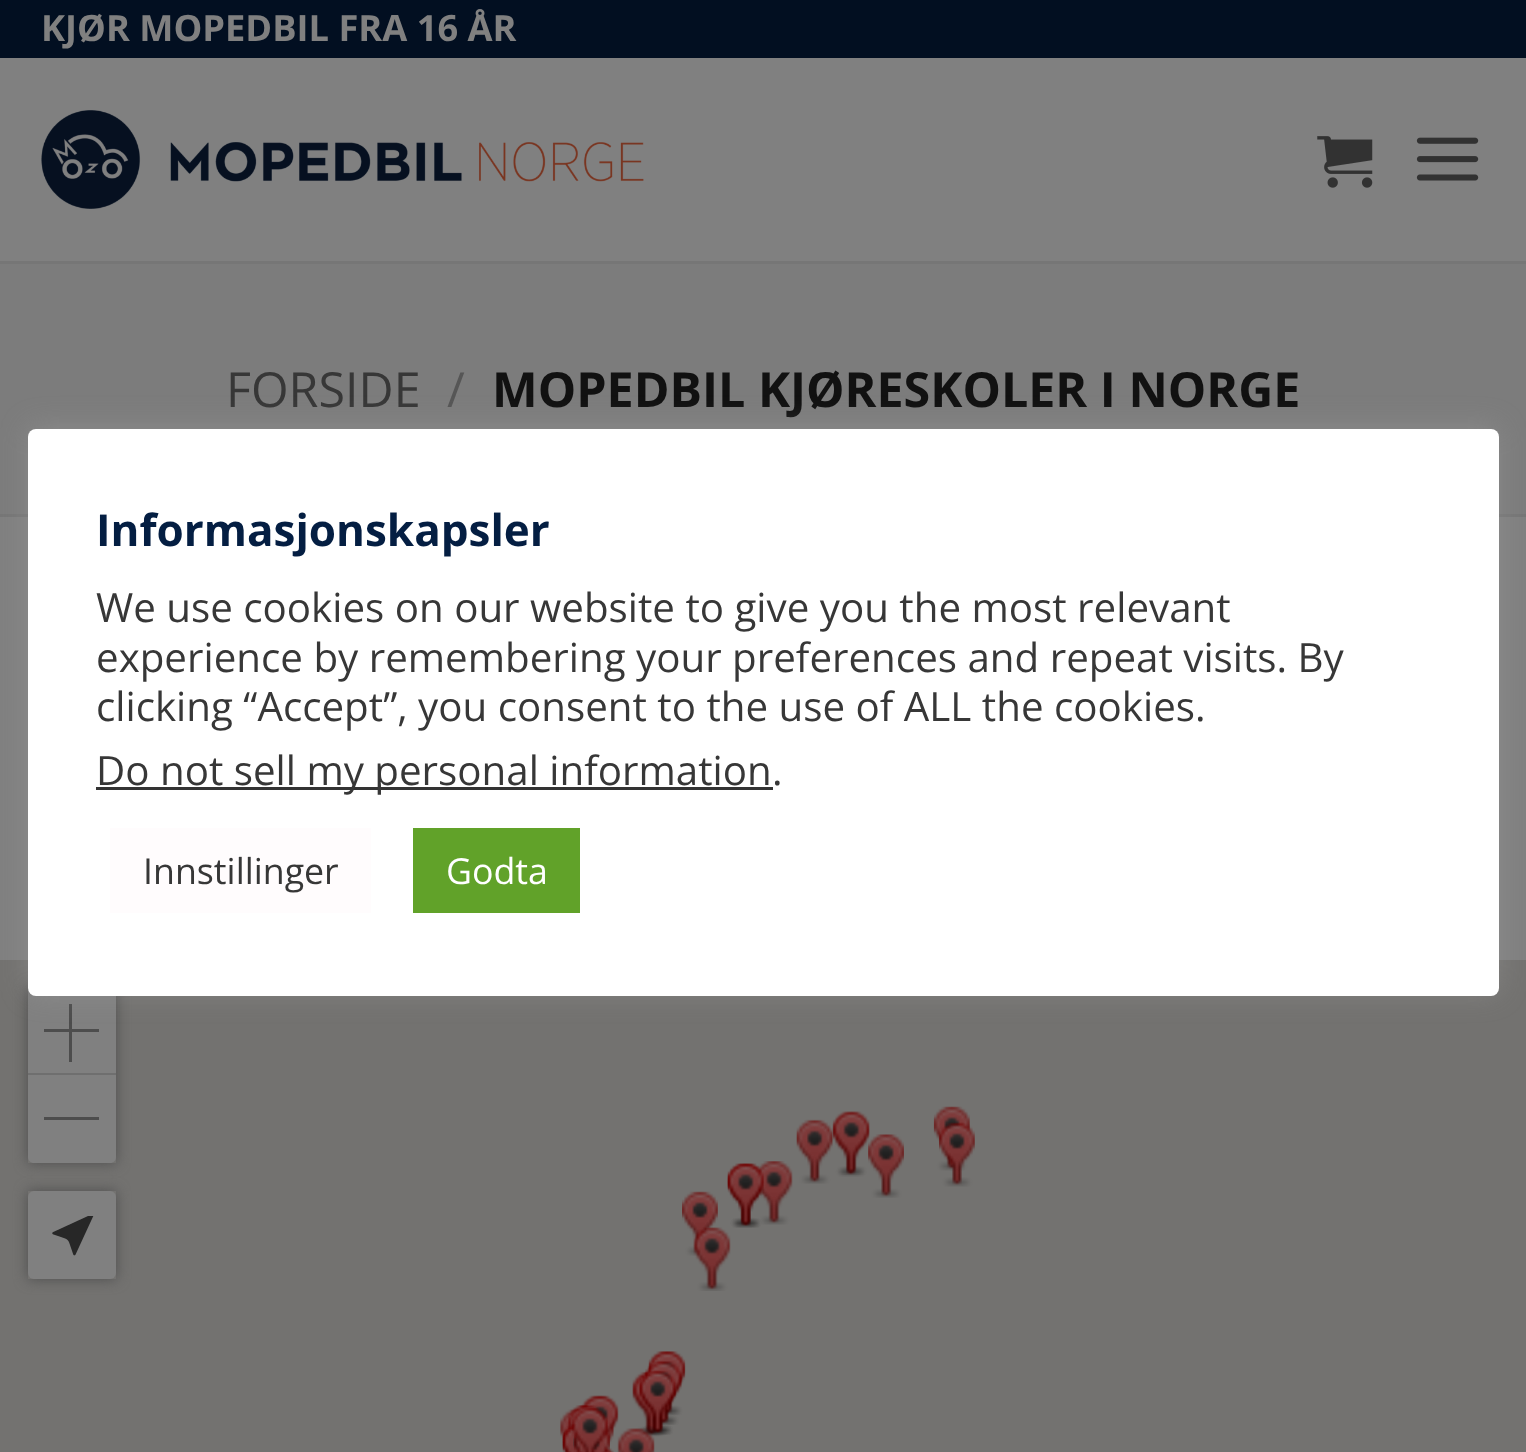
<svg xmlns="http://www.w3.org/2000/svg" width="1526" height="1452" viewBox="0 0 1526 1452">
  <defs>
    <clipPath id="clip1"><path d="M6 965H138V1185H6ZM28 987H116V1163H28Z" clip-rule="evenodd"/></clipPath>
    <clipPath id="clip2"><path d="M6 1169H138V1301H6ZM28 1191H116V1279H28Z" clip-rule="evenodd"/></clipPath>
  </defs>
  <rect width="100%" height="100%" fill="rgb(128,128,128)"/>
  <rect x="0" y="0" width="1526" height="58" fill="rgb(2,15,33)"/>
  <text x="41" y="41" font-family="Open Sans" font-size="36.25" font-weight="bold" fill="rgb(128,128,128)">KJØR MOPEDBIL FRA 16 ÅR</text>
  <image x="41" y="110" width="603" height="99" href="pic1.png"/>
  <image x="1317" y="136" width="56" height="52" href="pic2.png"/>
  <image x="1416" y="137" width="63" height="44" href="pic3.png"/>
  <rect x="0" y="264" width="1526" height="250" fill="rgb(124,124,124)"/>
  <rect x="0" y="261" width="1526" height="3" fill="rgb(118,118,118)"/>
  <rect x="0" y="514" width="1526" height="3" fill="rgb(118,118,118)"/>
  <text x="226" y="407" font-family="Open Sans" font-size="48.4" fill="rgb(55,55,55)">FORSIDE</text>
  <text x="447" y="407" font-family="Open Sans" font-size="48.4" fill="rgb(86,86,86)">/</text>
  <text x="492" y="407" font-family="Open Sans" font-size="48.4" font-weight="bold" fill="rgb(17,17,17)">MOPEDBIL KJØRESKOLER I NORGE</text>
  <rect x="0" y="960" width="1526" height="492" fill="rgb(115,114,112)"/>
  <g clip-path="url(#clip1)">
    <rect x="28" y="987" width="88" height="176" fill="rgb(77,77,77)" filter="blur(7px)"/>
  </g>
  <path d="M34 987H110C113.5 987 116 989.5 116 993V1075H28V993C28 989.5 30.5 987 34 987Z" fill="rgb(128,128,128)"/>
  <rect x="28" y="1073" width="88" height="2" fill="rgb(111,111,111)"/>
  <rect x="44" y="1029" width="55" height="3" fill="rgb(77,77,77)"/>
  <rect x="69" y="1004" width="3" height="58" fill="rgb(77,77,77)"/>
  <path d="M28 1075H116V1157C116 1160.5 113.5 1163 110 1163H34C30.5 1163 28 1160.5 28 1157Z" fill="rgb(128,128,128)"/>
  <rect x="44" y="1117" width="55" height="3" fill="rgb(77,77,77)"/>
  <g clip-path="url(#clip2)">
    <rect x="28" y="1191" width="88" height="88" fill="rgb(77,77,77)" filter="blur(7px)"/>
  </g>
  <rect x="28" y="1191" width="88" height="88" rx="6" fill="rgb(128,128,128)"/>
  <image x="52" y="1216" width="42" height="40" href="pic4.png"/>
  <image x="832" y="1112" width="37" height="65" href="pic10.png"/>
  <image x="868" y="1134" width="36" height="64" href="pic11.png"/>
  <image x="833" y="1111" width="37" height="64" href="pic5.png"/>
  <image x="933" y="1106" width="37" height="65" href="pic6.png"/>
  <image x="727" y="1163" width="37" height="65" href="pic7.png"/>
  <image x="727" y="1163" width="37" height="65" href="pic13.png"/>
  <image x="755" y="1161" width="38" height="64" href="pic8.png"/>
  <image x="796" y="1119" width="37" height="65" href="pic9.png"/>
  <image x="939" y="1122" width="36" height="65" href="pic12.png"/>
  <image x="682" y="1191" width="36" height="65" href="pic14.png"/>
  <image x="727" y="1163" width="37" height="65" href="pic15.png"/>
  <image x="693" y="1227" width="38" height="64" href="pic16.png"/>
  <image x="639" y="1370" width="38" height="65" href="pic21.png"/>
  <image x="632" y="1371" width="37" height="65" href="pic24.png"/>
  <image x="645" y="1361" width="37" height="64" href="pic19.png"/>
  <image x="648" y="1351" width="37" height="65" href="pic17.png"/>
  <image x="633" y="1372" width="38" height="65" href="pic26.png"/>
  <image x="639" y="1370" width="37" height="65" href="pic22.png"/>
  <image x="648" y="1351" width="38" height="64" href="pic18.png"/>
  <image x="645" y="1361" width="37" height="64" href="pic20.png"/>
  <image x="580" y="1395" width="38" height="57" href="pic25.png"/>
  <image x="564" y="1416" width="13" height="36" href="pic33.png"/>
  <image x="568" y="1405" width="25" height="17" href="pic29.png"/>
  <image x="564" y="1416" width="13" height="36" href="pic34.png"/>
  <image x="560" y="1409" width="29" height="43" href="pic31.png"/>
  <image x="585" y="1410" width="29" height="42" href="pic32.png"/>
  <image x="582" y="1395" width="37" height="57" href="pic27.png"/>
  <image x="617" y="1428" width="38" height="24" href="pic39.png"/>
  <image x="639" y="1370" width="37" height="65" href="pic23.png"/>
  <image x="567" y="1405" width="38" height="31" href="pic28.png"/>
  <image x="562" y="1423" width="37" height="29" href="pic35.png"/>
  <image x="562" y="1424" width="37" height="28" href="pic36.png"/>
  <image x="562" y="1424" width="37" height="28" href="pic37.png"/>
  <image x="583" y="1446" width="31" height="6" href="pic41.png"/>
  <image x="582" y="1446" width="32" height="6" href="pic40.png"/>
  <image x="574" y="1424" width="36" height="28" href="pic38.png"/>
  <image x="571" y="1407" width="37" height="45" href="pic30.png"/>
  <rect x="28" y="426" width="1471" height="567" rx="8" fill="rgba(172,171,171,0.3)" filter="blur(14px)"/>
  <rect x="28" y="429" width="1471" height="567" rx="8" fill="rgb(255,255,255)"/>
  <text x="96" y="546" font-family="Open Sans" font-size="44" font-weight="bold" fill="rgb(4,30,66)">Informasjonskapsler</text>
  <g font-family="Open Sans" font-size="40.3" fill="rgb(55,55,55)">
    <text>
      <tspan x="96" y="622">We use cookies on our website to give you the most relevant</tspan>
      <tspan x="96" y="672">experience by remembering your preferences and repeat visits. By</tspan>
      <tspan x="96" y="721">clicking “Accept”, you consent to the use of ALL the cookies.</tspan>
    </text>
  </g>
  <rect x="96" y="787" width="677" height="3" fill="rgb(51,51,51)"/>
  <g font-family="Open Sans" font-size="40.3" fill="rgb(55,55,55)">
    <text x="96" y="785">Do not sell my personal information</text>
    <text x="772" y="785">.</text>
  </g>
  <rect x="110" y="828" width="261" height="85" fill="rgb(255,252,253)"/>
  <text x="143" y="884" font-family="Open Sans" font-size="35.75" fill="rgb(55,55,55)">Innstillinger</text>
  <rect x="413" y="828" width="167" height="85" fill="rgb(97,162,41)"/>
  <text x="446" y="884" font-family="Open Sans" font-size="35.75" fill="rgb(255,255,255)">Godta</text>
</svg>
